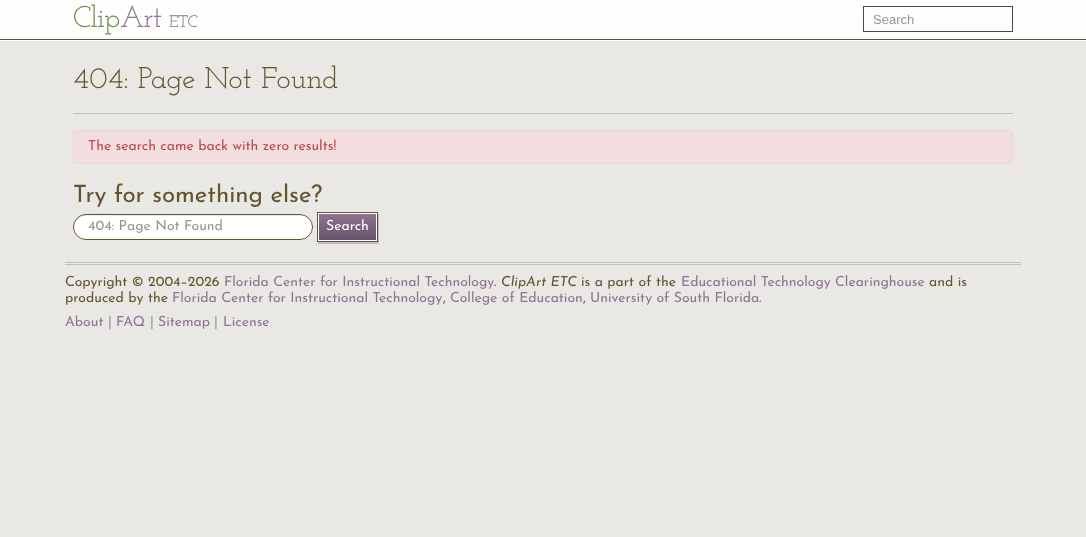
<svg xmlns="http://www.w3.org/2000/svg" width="1086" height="537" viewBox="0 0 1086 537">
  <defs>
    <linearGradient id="g1" gradientUnits="userSpaceOnUse" x1="543" y1="0" x2="543" y2="40"><stop offset="0" stop-color="rgb(254,254,254)"/><stop offset="1" stop-color="rgb(253,253,252)"/></linearGradient>
    <linearGradient id="g2" gradientUnits="userSpaceOnUse" x1="348" y1="213" x2="348" y2="241"><stop offset="0" stop-color="rgb(141,116,147)"/><stop offset="1" stop-color="rgb(100,82,105)"/></linearGradient>
  </defs>
  <rect width="100%" height="100%" fill="rgb(233,232,229)"/>
  <rect x="0" y="40" width="1086" height="1" fill="rgb(255,255,255)"/>
  <rect x="0" y="0" width="1086" height="39" fill="url(#g1)"/>
  <rect x="0" y="39" width="1086" height="1" fill="rgb(99,85,46)"/>
  <g font-family="Josefin Slab" font-size="30" letter-spacing="-1" fill="rgb(117,141,80)">
    <text x="73" y="27">Cl</text>
    <text x="97" y="27">ip</text>
  </g>
  <text x="120" y="27" font-family="Josefin Slab" font-size="30" letter-spacing="-1" fill="rgb(141,116,147)">Art</text>
  <text x="169" y="27" font-family="Josefin Slab" font-size="17" font-weight="600" letter-spacing="-1" fill="rgb(150,150,150)">ETC</text>
  <rect x="864" y="30" width="148" height="1" fill="rgb(255,255,255)"/>
  <rect x="863.5" y="6.5" width="149" height="25" fill="none" stroke="rgb(74,74,74)"/>
  <text x="873" y="24" font-family="Liberation Sans" font-size="13" fill="rgb(150,150,150)">Search</text>
  <rect x="73" y="113" width="940" height="1" fill="rgb(191,191,191)"/>
  <text x="73" y="88" font-family="Josefin Slab" font-size="30" fill="rgb(99,85,46)">404: Page Not Found</text>
  <rect x="73.5" y="130.5" width="939" height="33" rx="3.5" fill="rgb(242,222,222)" stroke="rgb(238,211,215)"/>
  <text x="88" y="150" font-family="Josefin Sans" font-size="14" fill="rgb(185,74,72)">The search came back with zero results!</text>
  <text x="73" y="202" font-family="Josefin Sans" font-size="24" fill="rgb(99,85,46)">Try for something else?</text>
  <rect x="73" y="214" width="240" height="26" rx="13" fill="rgb(255,255,255)"/>
  <path d="M86 216H302C307 217 311 221 312 226C311 220 306 215 300 215H122C119 215 68 206 74 230C73 223 78 216 86 216Z" fill="rgba(0,0,0,0.07)"/>
  <rect x="73.5" y="214.5" width="239" height="25" rx="12.5" fill="none" stroke="rgb(99,85,46)"/>
  <text x="88" y="230" font-family="Josefin Sans" font-size="14" fill="rgb(150,150,150)">404: Page Not Found</text>
  <path d="M318 242V244H379V214H378V242Z" fill="rgb(191,191,191)"/>
  <rect x="319" y="214" width="57" height="26" fill="url(#g2)"/>
  <rect x="318.5" y="213.5" width="58" height="27" fill="none" stroke="rgb(255,255,255)"/>
  <rect x="317.5" y="212.5" width="60" height="29" fill="none" stroke="rgb(99,85,46)"/>
  <text x="326" y="230" font-family="Josefin Sans" font-size="14" fill="rgb(255,255,255)">Search</text>
  <rect x="65" y="262" width="956" height="1" fill="rgb(191,191,191)"/>
  <rect x="65" y="264" width="956" height="1" fill="rgb(191,191,191)"/>
  <text x="65" y="286" font-family="Josefin Sans" font-size="14" fill="rgb(99,85,46)">Copyright © 2004–2026</text>
  <text x="224" y="286" font-family="Josefin Sans" font-size="14" fill="rgb(141,116,147)">Florida Center for Instructional Technology</text>
  <text x="494" y="286" font-family="Josefin Sans" font-size="14" fill="rgb(99,85,46)">.</text>
  <text x="501" y="286" font-family="Josefin Sans" font-size="14" font-weight="100" font-style="italic" fill="rgb(99,85,46)">ClipArt ETC</text>
  <text x="581" y="286" font-family="Josefin Sans" font-size="14" fill="rgb(99,85,46)">is a part of the</text>
  <text x="681" y="286" font-family="Josefin Sans" font-size="14" fill="rgb(141,116,147)">Educational Technology Clearinghouse</text>
  <g font-family="Josefin Sans" font-size="14" fill="rgb(99,85,46)">
    <text x="929" y="286">and is</text>
    <text x="65" y="302">produced by the</text>
  </g>
  <text x="172" y="302" font-family="Josefin Sans" font-size="14" fill="rgb(141,116,147)">Florida Center for Instructional Technology</text>
  <text x="443" y="302" font-family="Josefin Sans" font-size="14" fill="rgb(99,85,46)">,</text>
  <text x="450" y="302" font-family="Josefin Sans" font-size="14" fill="rgb(141,116,147)">College of Education</text>
  <text x="583" y="302" font-family="Josefin Sans" font-size="14" fill="rgb(99,85,46)">,</text>
  <text x="590" y="302" font-family="Josefin Sans" font-size="14" fill="rgb(141,116,147)">University of South Florida</text>
  <text x="759" y="302" font-family="Josefin Sans" font-size="14" fill="rgb(99,85,46)">.</text>
  <text x="65" y="326" font-family="Josefin Sans" font-size="14" fill="rgb(141,116,147)">About</text>
  <text x="108" y="326" font-family="Josefin Sans" font-size="14" fill="rgb(150,150,150)">|</text>
  <text x="116" y="326" font-family="Josefin Sans" font-size="14" fill="rgb(141,116,147)">FAQ</text>
  <text x="150" y="326" font-family="Josefin Sans" font-size="14" fill="rgb(150,150,150)">|</text>
  <text x="158" y="326" font-family="Josefin Sans" font-size="14" fill="rgb(141,116,147)">Sitemap</text>
  <text x="214" y="326" font-family="Josefin Sans" font-size="14" fill="rgb(150,150,150)">|</text>
  <text x="223" y="326" font-family="Josefin Sans" font-size="14" fill="rgb(141,116,147)">License</text>
</svg>
